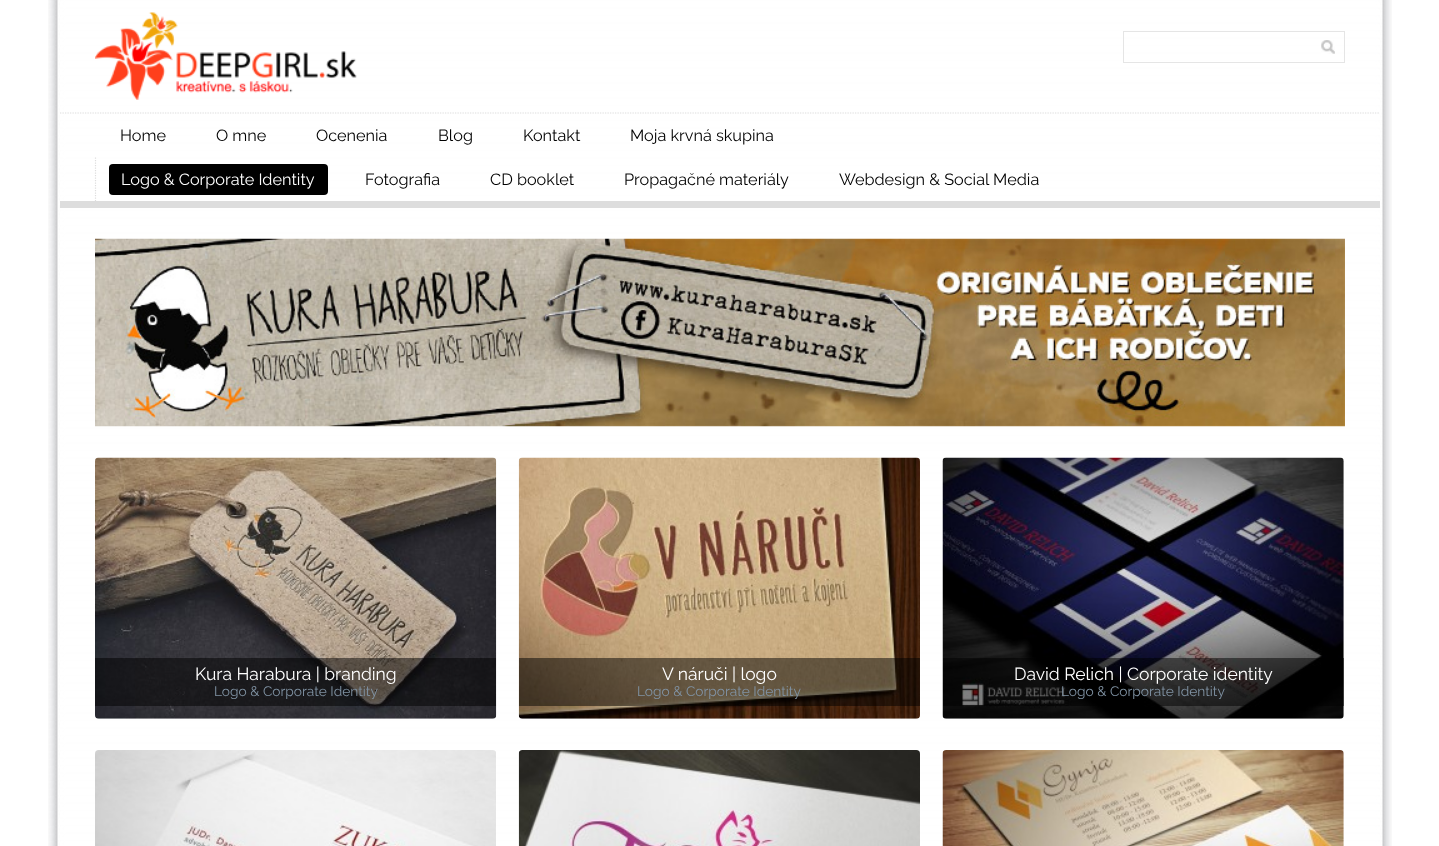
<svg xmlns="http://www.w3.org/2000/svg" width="1439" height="846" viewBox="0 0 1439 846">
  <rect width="100%" height="100%" fill="rgb(255,255,255)"/>
  <image x="48" y="0" width="1344" height="846" href="pic1.png"/>
  <image x="95" y="12" width="262" height="88" href="pic2.png"/>
  <rect x="1123.5" y="31.5" width="221" height="31" fill="none" stroke="rgb(229,229,229)"/>
  <image x="1321" y="40" width="14" height="14" href="pic3.png"/>
  <path d="M60 113H1380" fill="none" stroke="rgb(221,221,221)" stroke-width="1.2" stroke-dasharray="1.25 1.25"/>
  <rect x="60" y="201" width="1320" height="7" fill="rgb(221,221,221)"/>
  <g font-family="Raleway" font-size="16.25" font-weight="100" fill="rgb(0,0,0)">
    <text x="120" y="141">Home</text>
    <text x="216" y="141">O mne</text>
    <text x="316" y="141">Ocenenia</text>
    <text x="438" y="141">Blog</text>
    <text x="523" y="141">Kontakt</text>
    <text x="630" y="141">Moja krvná skupina</text>
  </g>
  <path d="M95.5 157.5V201" fill="none" stroke="rgb(221,221,221)" stroke-width="1.2" stroke-dasharray="1.25 1.25"/>
  <rect x="109" y="164" width="219" height="31" rx="4" fill="rgb(0,0,0)"/>
  <text x="121" y="185" font-family="Raleway" font-size="16.25" font-weight="100" fill="rgb(255,255,255)">Logo &amp; Corporate Identity</text>
  <g font-family="Raleway" font-size="16.25" font-weight="100" fill="rgb(0,0,0)">
    <text x="365" y="185">Fotografia</text>
    <text x="490" y="185">CD booklet</text>
    <text x="624" y="185">Propagačné materiály</text>
    <text x="839" y="185">Webdesign &amp; Social Media</text>
  </g>
  <image x="95" y="238" width="1250" height="189" href="pic4.png"/>
  <image x="95" y="457" width="402" height="262" href="pic5.png"/>
  <rect x="95" y="658" width="401" height="48" fill="rgba(0,0,0,0.5)"/>
  <text x="195" y="680" font-family="Raleway" font-size="17.5" font-weight="100" fill="rgb(255,255,255)">Kura Harabura | branding</text>
  <text x="214" y="696" font-family="Raleway" font-size="13.75" font-weight="100" fill="rgb(128,147,164)">Logo &amp; Corporate Identity</text>
  <image x="518" y="457" width="402" height="262" href="pic6.png"/>
  <rect x="519" y="658" width="401" height="48" fill="rgba(0,0,0,0.5)"/>
  <text x="662" y="680" font-family="Raleway" font-size="17.5" font-weight="100" fill="rgb(255,255,255)">V náruči | logo</text>
  <text x="637" y="696" font-family="Raleway" font-size="13.75" font-weight="100" fill="rgb(128,147,164)">Logo &amp; Corporate Identity</text>
  <image x="942" y="457" width="402" height="262" href="pic7.png"/>
  <rect x="943" y="658" width="401" height="48" fill="rgba(0,0,0,0.5)"/>
  <text x="1014" y="680" font-family="Raleway" font-size="17.5" font-weight="100" fill="rgb(255,255,255)">David Relich | Corporate identity</text>
  <text x="1061" y="696" font-family="Raleway" font-size="13.75" font-weight="100" fill="rgb(128,147,164)">Logo &amp; Corporate Identity</text>
  <image x="95" y="750" width="401" height="96" href="pic8.png"/>
  <image x="518" y="750" width="402" height="96" href="pic9.png"/>
  <image x="942" y="750" width="402" height="96" href="pic10.png"/>
</svg>
